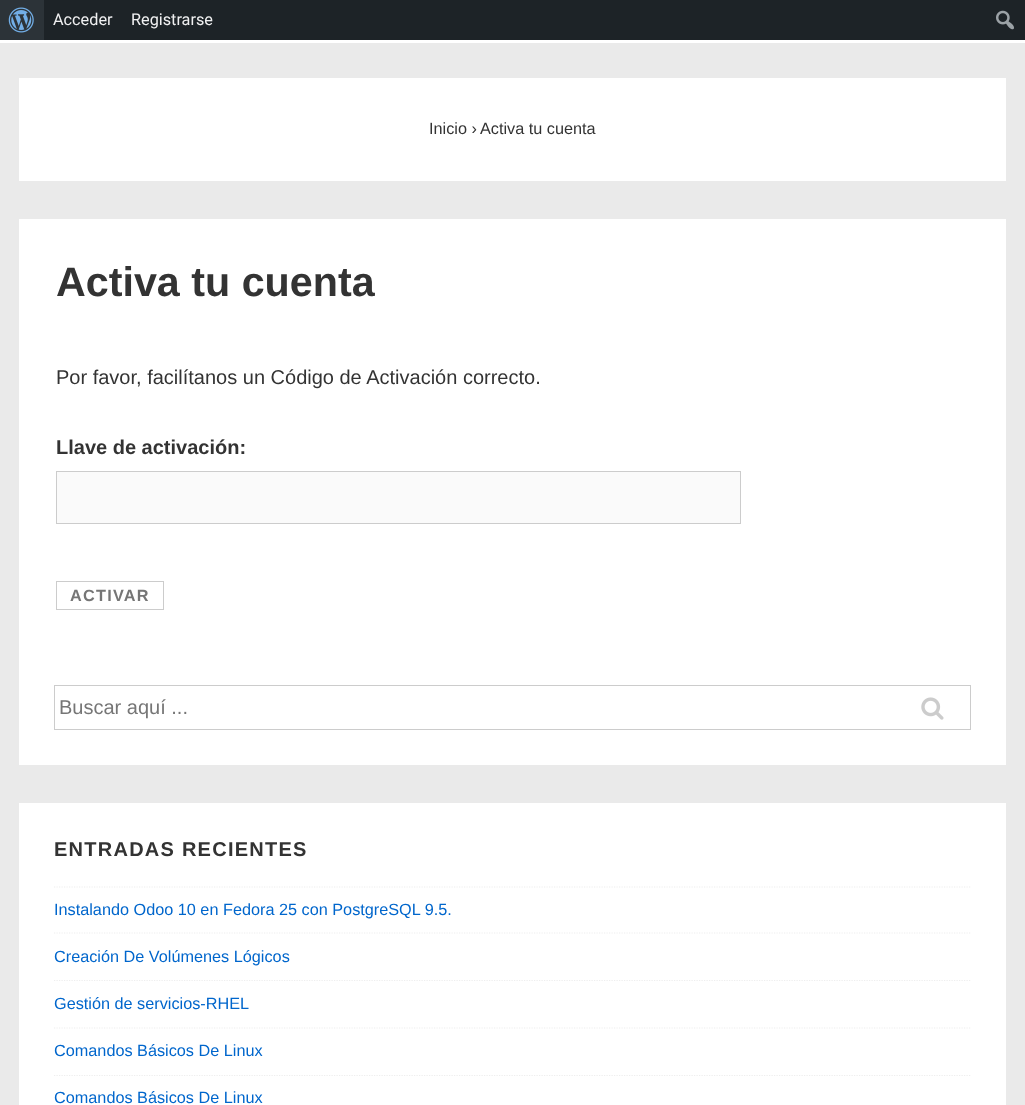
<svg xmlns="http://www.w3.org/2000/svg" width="1025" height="1105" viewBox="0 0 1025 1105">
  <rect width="100%" height="100%" fill="rgb(234,234,234)"/>
  <rect x="44" y="0" width="981" height="40" fill="rgb(29,35,39)"/>
  <rect x="0" y="0" width="44" height="40" fill="rgb(44,51,56)"/>
  <image x="8" y="7" width="26" height="26" href="pic1.png"/>
  <g font-family="Roboto" font-size="16.25" fill="rgb(240,240,241)">
    <text x="53" y="25">Acceder</text>
    <text x="131" y="25">Registrarse</text>
  </g>
  <image x="996" y="10" width="18" height="20" href="pic2.png"/>
  <rect x="0" y="40" width="1025" height="3" fill="rgb(255,255,255)"/>
  <rect x="19" y="78" width="987" height="103" fill="rgb(255,255,255)"/>
  <g font-family="Liberation Sans" font-size="16.25" fill="rgb(51,51,51)">
    <text x="429" y="134">Inicio ›</text>
    <text x="480" y="134">Activa tu cuenta</text>
  </g>
  <rect x="19" y="219" width="987" height="546" fill="rgb(255,255,255)"/>
  <text x="56" y="296" font-family="Liberation Sans" font-size="41.25" font-weight="bold" fill="rgb(51,51,51)">Activa tu cuenta</text>
  <text x="56" y="384" font-family="Liberation Sans" font-size="20" fill="rgb(51,51,51)">Por favor, facilítanos un Código de Activación correcto.</text>
  <text x="56" y="454" font-family="Liberation Sans" font-size="20" font-weight="bold" fill="rgb(51,51,51)">Llave de activación:</text>
  <rect x="56.5" y="471.5" width="684" height="52" fill="rgb(250,250,250)" stroke="rgb(204,204,204)"/>
  <rect x="56.5" y="581.5" width="107" height="28" fill="none" stroke="rgb(204,204,204)"/>
  <text x="70" y="601" font-family="Liberation Sans" font-size="16.25" font-weight="bold" letter-spacing="1.25" fill="rgb(118,118,118)">ACTIVAR</text>
  <rect x="54.5" y="685.5" width="916" height="44" fill="none" stroke="rgb(204,204,204)"/>
  <text x="59" y="714" font-family="Liberation Sans" font-size="20" fill="rgb(118,118,118)">Buscar aquí ...</text>
  <image x="921" y="697" width="23" height="23" href="pic3.png"/>
  <rect x="19" y="803" width="987" height="302" fill="rgb(255,255,255)"/>
  <text x="54" y="856" font-family="Liberation Sans" font-size="20" font-weight="bold" letter-spacing="1.25" fill="rgb(51,51,51)">ENTRADAS RECIENTES</text>
  <path d="M54 887H971" fill="none" stroke="rgb(238,238,238)" stroke-width="1.2" stroke-dasharray="1.25 1.25"/>
  <text x="54" y="915" font-family="Liberation Sans" font-size="16.25" fill="rgb(0,102,204)">Instalando Odoo 10 en Fedora 25 con PostgreSQL 9.5.</text>
  <path d="M54 933H971" fill="none" stroke="rgb(238,238,238)" stroke-width="1.2" stroke-dasharray="1.25 1.25"/>
  <text x="54" y="962" font-family="Liberation Sans" font-size="16.25" fill="rgb(0,102,204)">Creación De Volúmenes Lógicos</text>
  <path d="M54 980.5H971" fill="none" stroke="rgb(238,238,238)" stroke-width="1.2" stroke-dasharray="1.25 1.25"/>
  <text x="54" y="1009" font-family="Liberation Sans" font-size="16.25" fill="rgb(0,102,204)">Gestión de servicios-RHEL</text>
  <path d="M54 1028H971" fill="none" stroke="rgb(238,238,238)" stroke-width="1.2" stroke-dasharray="1.25 1.25"/>
  <text x="54" y="1056" font-family="Liberation Sans" font-size="16.25" fill="rgb(0,102,204)">Comandos Básicos De Linux</text>
  <path d="M54 1075.5H971" fill="none" stroke="rgb(238,238,238)" stroke-width="1.2" stroke-dasharray="1.25 1.25"/>
  <text x="54" y="1103" font-family="Liberation Sans" font-size="16.25" fill="rgb(0,102,204)">Comandos Básicos De Linux</text>
</svg>
